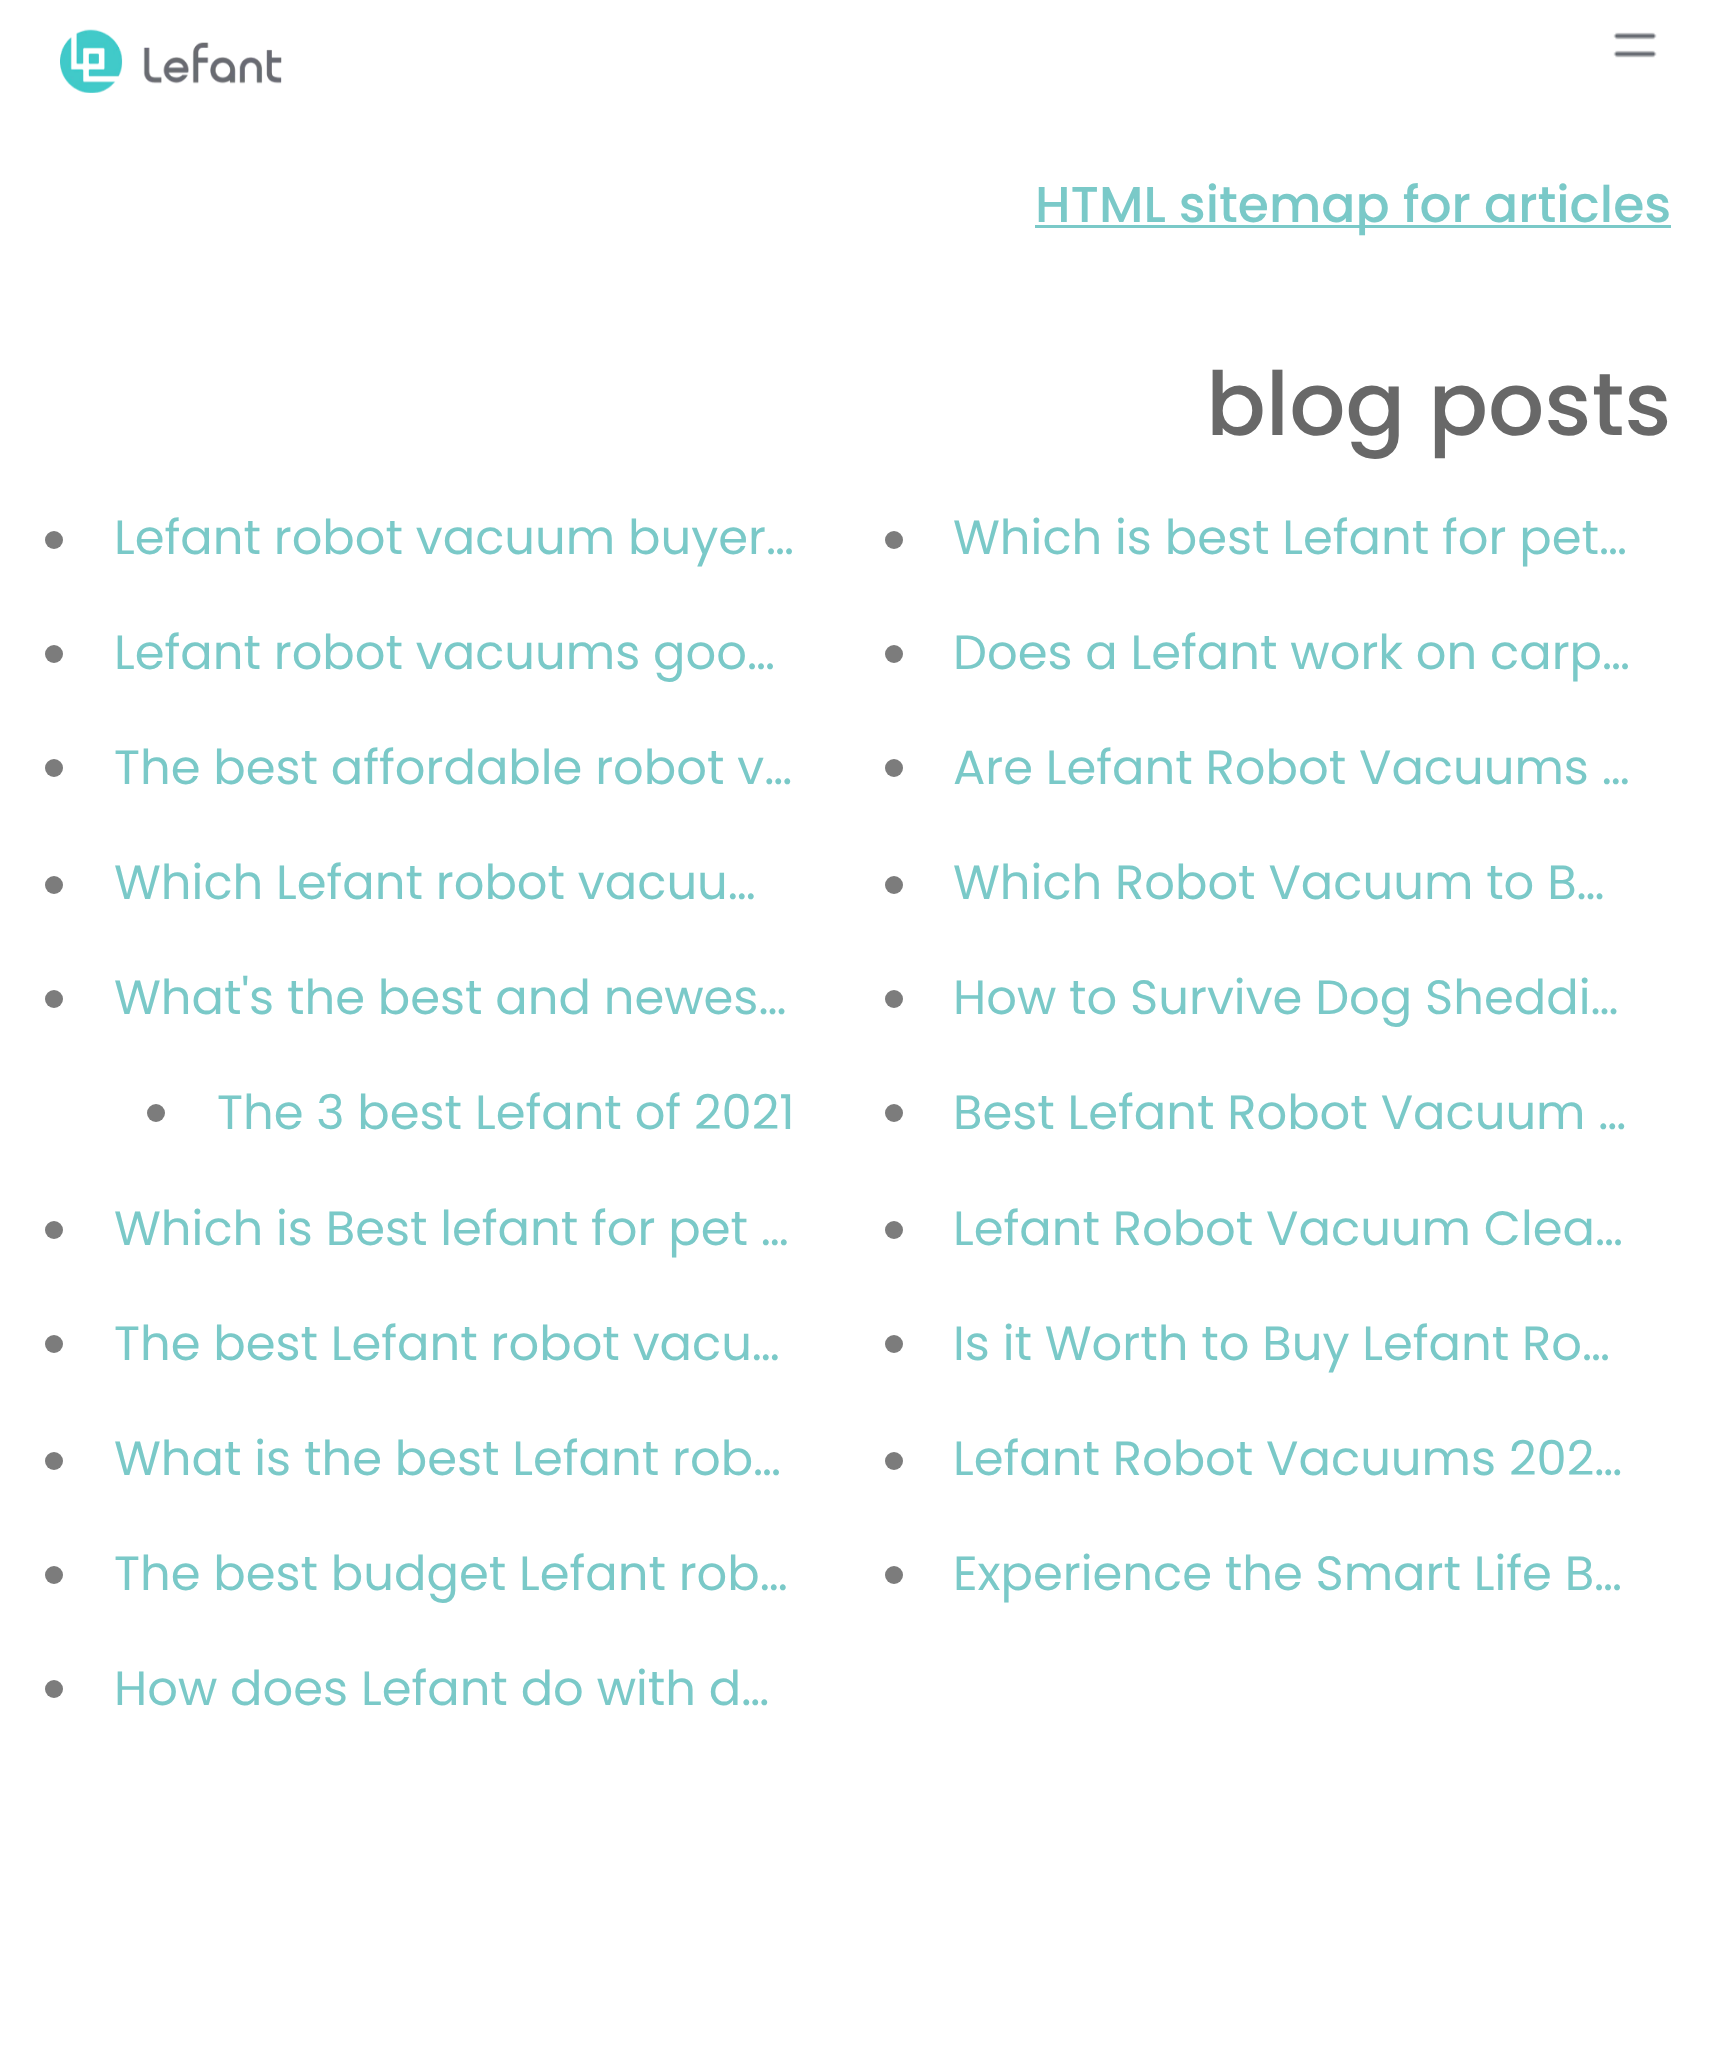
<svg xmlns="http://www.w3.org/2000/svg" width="1715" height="2055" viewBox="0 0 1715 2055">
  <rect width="100%" height="100%" fill="rgb(255,255,255)"/>
  <image x="60" y="29" width="222" height="64" href="pic1.png"/>
  <image x="1613" y="32" width="44" height="26" href="pic2.png"/>
  <rect x="1035" y="225" width="636" height="3" fill="rgb(122,201,200)"/>
  <text x="1035" y="222" font-family="Poppins" font-size="50.4" font-weight="500" fill="rgb(122,201,200)">HTML sitemap for articles</text>
  <text x="1206" y="435" font-family="Poppins" font-size="88.25" font-weight="500" fill="rgb(104,104,104)">blog posts</text>
  <circle cx="54" cy="540" r="9" fill="rgb(124,124,124)"/>
  <text x="114" y="554" font-family="Poppins" font-size="48" fill="rgb(122,201,200)">Lefant robot vacuum buyer…</text>
  <circle cx="894" cy="540" r="9" fill="rgb(124,124,124)"/>
  <text x="953" y="554" font-family="Poppins" font-size="48" fill="rgb(122,201,200)">Which is best Lefant for pet…</text>
  <circle cx="54" cy="654" r="9" fill="rgb(124,124,124)"/>
  <text x="114" y="669" font-family="Poppins" font-size="48" fill="rgb(122,201,200)">Lefant robot vacuums goo…</text>
  <circle cx="894" cy="654" r="9" fill="rgb(124,124,124)"/>
  <text x="953" y="669" font-family="Poppins" font-size="48" fill="rgb(122,201,200)">Does a Lefant work on carp…</text>
  <circle cx="54" cy="768" r="9" fill="rgb(124,124,124)"/>
  <text x="114" y="784" font-family="Poppins" font-size="48" fill="rgb(122,201,200)">The best affordable robot v…</text>
  <circle cx="894" cy="768" r="9" fill="rgb(124,124,124)"/>
  <text x="953" y="784" font-family="Poppins" font-size="48" fill="rgb(122,201,200)">Are Lefant Robot Vacuums …</text>
  <circle cx="54" cy="885" r="9" fill="rgb(124,124,124)"/>
  <text x="114" y="899" font-family="Poppins" font-size="48" fill="rgb(122,201,200)">Which Lefant robot vacuu…</text>
  <circle cx="894" cy="885" r="9" fill="rgb(124,124,124)"/>
  <text x="953" y="899" font-family="Poppins" font-size="48" fill="rgb(122,201,200)">Which Robot Vacuum to B…</text>
  <circle cx="54" cy="999" r="9" fill="rgb(124,124,124)"/>
  <text x="114" y="1014" font-family="Poppins" font-size="48" fill="rgb(122,201,200)">What's the best and newes…</text>
  <circle cx="894" cy="999" r="9" fill="rgb(124,124,124)"/>
  <text x="953" y="1014" font-family="Poppins" font-size="48" fill="rgb(122,201,200)">How to Survive Dog Sheddi…</text>
  <circle cx="156" cy="1113" r="9" fill="rgb(124,124,124)"/>
  <text x="217" y="1129" font-family="Poppins" font-size="48" fill="rgb(122,201,200)">The 3 best Lefant of 2021</text>
  <circle cx="894" cy="1113" r="9" fill="rgb(124,124,124)"/>
  <text x="953" y="1129" font-family="Poppins" font-size="48" fill="rgb(122,201,200)">Best Lefant Robot Vacuum …</text>
  <circle cx="54" cy="1230" r="9" fill="rgb(124,124,124)"/>
  <text x="114" y="1245" font-family="Poppins" font-size="48" fill="rgb(122,201,200)">Which is Best lefant for pet …</text>
  <circle cx="894" cy="1230" r="9" fill="rgb(124,124,124)"/>
  <text x="953" y="1245" font-family="Poppins" font-size="48" fill="rgb(122,201,200)">Lefant Robot Vacuum Clea…</text>
  <circle cx="54" cy="1344" r="9" fill="rgb(124,124,124)"/>
  <text x="114" y="1360" font-family="Poppins" font-size="48" fill="rgb(122,201,200)">The best Lefant robot vacu…</text>
  <circle cx="894" cy="1344" r="9" fill="rgb(124,124,124)"/>
  <text x="953" y="1360" font-family="Poppins" font-size="48" fill="rgb(122,201,200)">Is it Worth to Buy Lefant Ro…</text>
  <circle cx="54" cy="1461" r="9" fill="rgb(124,124,124)"/>
  <text x="114" y="1475" font-family="Poppins" font-size="48" fill="rgb(122,201,200)">What is the best Lefant rob…</text>
  <circle cx="894" cy="1461" r="9" fill="rgb(124,124,124)"/>
  <text x="953" y="1475" font-family="Poppins" font-size="48" fill="rgb(122,201,200)">Lefant Robot Vacuums 202…</text>
  <circle cx="54" cy="1575" r="9" fill="rgb(124,124,124)"/>
  <text x="114" y="1590" font-family="Poppins" font-size="48" fill="rgb(122,201,200)">The best budget Lefant rob…</text>
  <circle cx="894" cy="1575" r="9" fill="rgb(124,124,124)"/>
  <text x="953" y="1590" font-family="Poppins" font-size="48" fill="rgb(122,201,200)">Experience the Smart Life B…</text>
  <circle cx="54" cy="1689" r="9" fill="rgb(124,124,124)"/>
  <text x="114" y="1705" font-family="Poppins" font-size="48" fill="rgb(122,201,200)">How does Lefant do with d…</text>
</svg>
